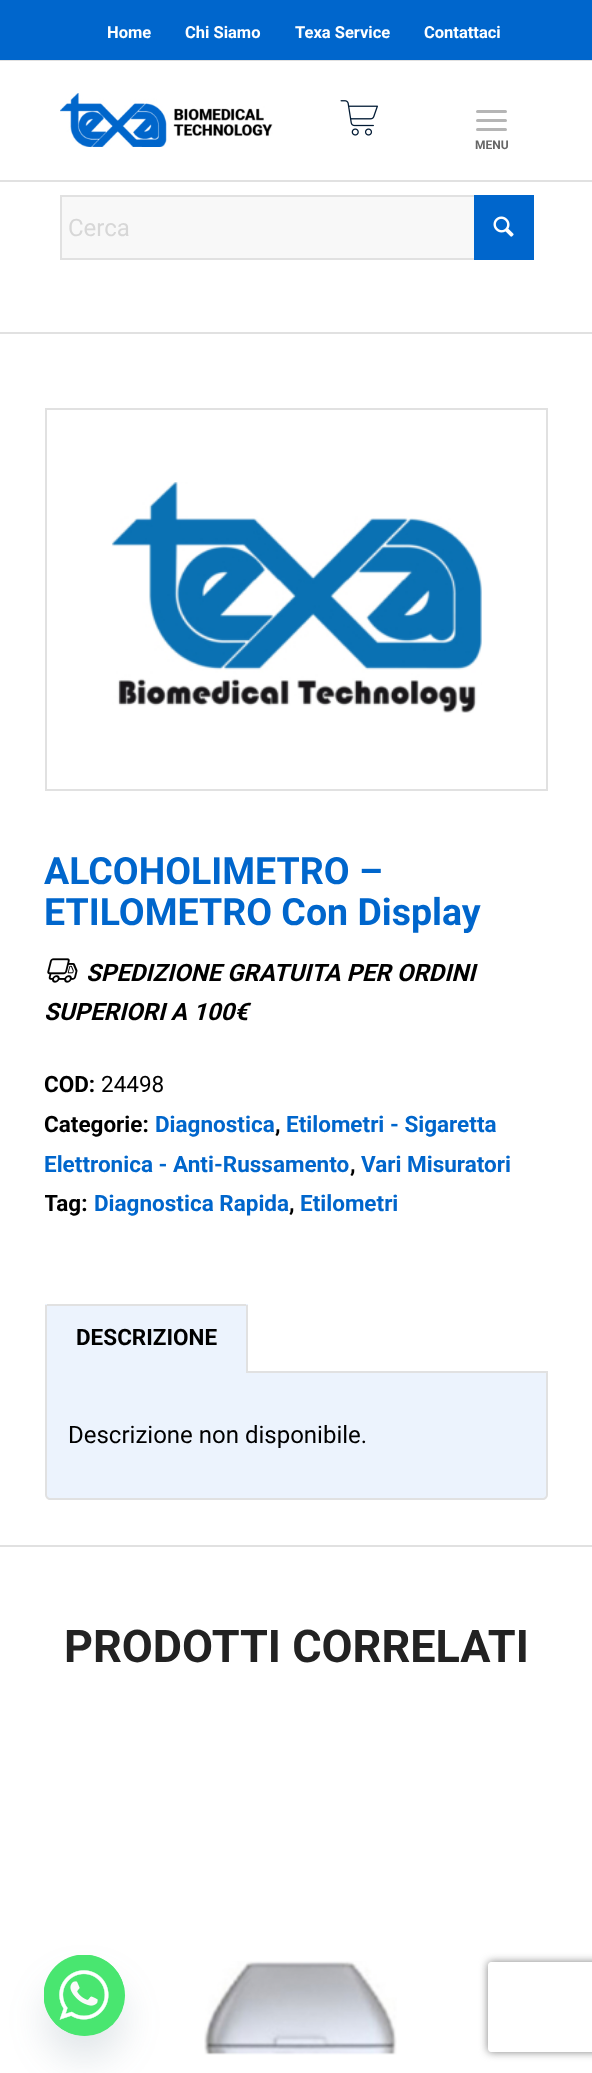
<svg xmlns="http://www.w3.org/2000/svg" width="592" height="2073" viewBox="0 0 592 2073">
  <defs>
    <clipPath id="clip1"><rect x="45" y="851" width="503" height="694"/></clipPath>
    <clipPath id="clip2"><path d="M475 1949H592V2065H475ZM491 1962H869C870.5 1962 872 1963.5 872 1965V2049C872 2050.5 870.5 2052 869 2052H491C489.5 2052 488 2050.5 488 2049V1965C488 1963.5 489.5 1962 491 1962Z" clip-rule="evenodd"/></clipPath>
  </defs>
  <rect width="100%" height="100%" fill="rgb(255,255,255)"/>
  <rect x="0" y="0" width="592" height="60" fill="rgb(0,102,204)"/>
  <g font-family="Roboto" font-size="16.5" font-weight="bold" fill="rgb(255,255,255)">
    <text x="107" y="38">Home</text>
    <text x="185" y="38">Chi Siamo</text>
    <text x="295" y="38">Texa Service</text>
    <text x="424" y="38">Contattaci</text>
  </g>
  <rect x="0" y="60" width="592" height="1" fill="rgb(225,225,225)"/>
  <rect x="0" y="180" width="592" height="2" fill="rgb(225,225,225)"/>
  <image x="60" y="93" width="213" height="54" href="pic1.png"/>
  <image x="340" y="100" width="38" height="36" href="pic2.png"/>
  <rect x="476" y="119" width="31" height="3" rx="1.5" fill="rgb(181,181,181)"/>
  <rect x="476" y="110" width="31" height="3" rx="1.5" fill="rgb(181,181,181)"/>
  <rect x="476" y="128" width="31" height="3" rx="1.5" fill="rgb(181,181,181)"/>
  <text x="475" y="149" font-family="Roboto" font-size="12" font-weight="bold" fill="rgb(102,102,102)">MENU</text>
  <rect x="62" y="197" width="412" height="61" fill="rgb(248,248,248)"/>
  <rect x="61" y="196" width="472" height="63" fill="none" stroke="rgb(225,225,225)" stroke-width="2"/>
  <text x="68" y="236" font-family="Roboto" font-size="24" fill="rgb(215,215,215)">Cerca</text>
  <rect x="474" y="195" width="60" height="65" fill="rgb(0,102,204)"/>
  <image x="493" y="216" width="21" height="21" href="pic3.png"/>
  <rect x="0" y="332" width="592" height="2" fill="rgb(225,225,225)"/>
  <rect x="46" y="409" width="501" height="381" fill="none" stroke="rgb(225,225,225)" stroke-width="2"/>
  <image x="111" y="482" width="371" height="231" href="pic4.png"/>
  <g font-family="Roboto" font-size="37.5" font-weight="bold" fill="rgb(0,102,204)">
    <text>
      <tspan x="44" y="884">ALCOHOLIMETRO –</tspan>
      <tspan x="44" y="925">ETILOMETRO Con Display</tspan>
    </text>
  </g>
  <image x="47" y="958" width="31" height="25" href="pic5.png"/>
  <g font-family="Roboto" font-size="24" font-weight="bold" font-style="italic" fill="rgb(0,0,0)">
    <text x="86" y="981">SPEDIZIONE GRATUITA PER ORDINI</text>
    <text x="44" y="1020">SUPERIORI A 100€</text>
  </g>
  <text x="44" y="1092" font-family="Roboto" font-size="22.5" font-weight="bold" fill="rgb(0,0,0)">COD:</text>
  <text x="101" y="1092" font-family="Roboto" font-size="22.5" fill="rgb(0,0,0)">24498</text>
  <text x="44" y="1132" font-family="Roboto" font-size="22.5" font-weight="bold" fill="rgb(0,0,0)">Categorie:</text>
  <text x="155" y="1132" font-family="Roboto" font-size="22.5" font-weight="bold" fill="rgb(0,102,204)">Diagnostica</text>
  <text x="275" y="1132" font-family="Roboto" font-size="22.5" font-weight="bold" fill="rgb(0,0,0)">,</text>
  <g font-family="Roboto" font-size="22.5" font-weight="bold" fill="rgb(0,102,204)">
    <text x="286" y="1132">Etilometri - Sigaretta</text>
    <text x="44" y="1172">Elettronica - Anti-Russamento</text>
  </g>
  <text x="350" y="1172" font-family="Roboto" font-size="22.5" font-weight="bold" fill="rgb(0,0,0)">,</text>
  <text x="361" y="1172" font-family="Roboto" font-size="22.5" font-weight="bold" fill="rgb(0,102,204)">Vari Misuratori</text>
  <g clip-path="url(#clip1)">
    <text x="44" y="1211" font-family="Roboto" font-size="22.5" font-weight="bold" fill="rgb(0,0,0)">Tag:</text>
  </g>
  <text x="94" y="1211" font-family="Roboto" font-size="22.5" font-weight="bold" fill="rgb(0,102,204)">Diagnostica Rapida</text>
  <text x="289" y="1211" font-family="Roboto" font-size="22.5" font-weight="bold" fill="rgb(0,0,0)">,</text>
  <text x="300" y="1211" font-family="Roboto" font-size="22.5" font-weight="bold" fill="rgb(0,102,204)">Etilometri</text>
  <path d="M46 1372H547V1495C547 1497 545 1499 543 1499H50C48 1499 46 1497 46 1495Z" fill="rgb(236,243,253)" stroke="rgb(225,225,225)" stroke-width="2"/>
  <rect x="45" y="1304" width="203" height="69" fill="rgb(236,243,253)"/>
  <rect x="47" y="1304" width="199" height="2" fill="rgb(225,225,225)"/>
  <rect x="246" y="1305" width="2" height="68" fill="rgb(225,225,225)"/>
  <rect x="45" y="1305" width="2" height="68" fill="rgb(225,225,225)"/>
  <text x="76" y="1345" font-family="Roboto" font-size="22.5" font-weight="bold" fill="rgb(0,0,0)">DESCRIZIONE</text>
  <text x="68" y="1443" font-family="Roboto" font-size="24" fill="rgb(0,0,0)">Descrizione non disponibile.</text>
  <rect x="0" y="1545" width="592" height="2" fill="rgb(225,225,225)"/>
  <text x="64" y="1662" font-family="Roboto" font-size="45" font-weight="bold" fill="rgb(34,34,34)">PRODOTTI CORRELATI</text>
  <image x="204" y="1961" width="193" height="94" href="pic6.png"/>
  <rect x="44" y="1979" width="81" height="81" rx="40.5" fill="rgba(73,104,126,0.16)" filter="blur(18px)"/>
  <circle cx="84.5" cy="1995.5" r="40.5" fill="rgb(73,230,112)"/>
  <image x="44" y="1955" width="81" height="81" href="pic7.png"/>
  <g clip-path="url(#clip2)">
    <rect x="488" y="1962" width="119" height="90" rx="3" fill="rgb(128,128,128)" filter="blur(4px)"/>
  </g>
</svg>
